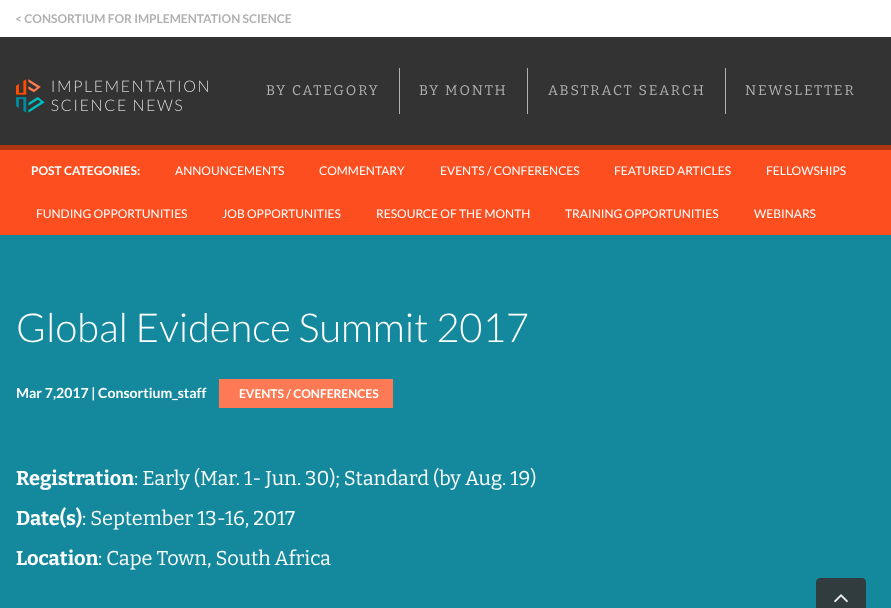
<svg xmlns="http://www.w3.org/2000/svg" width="891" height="608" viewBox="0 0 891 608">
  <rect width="100%" height="100%" fill="rgb(255,255,255)"/>
  <text x="15" y="23" font-family="Lato" font-size="12" font-weight="bold" fill="rgb(177,177,177)">&lt; CONSORTIUM FOR IMPLEMENTATION SCIENCE</text>
  <rect x="0" y="37" width="891" height="108" fill="rgb(51,51,51)"/>
  <image x="16" y="79" width="192" height="34" href="pic1.png"/>
  <rect x="399" y="68" width="1" height="46" fill="rgb(177,177,177)"/>
  <text x="266" y="95" font-family="Bitter" font-size="14" letter-spacing="2" fill="rgb(177,177,177)">BY CATEGORY</text>
  <rect x="527" y="68" width="1" height="46" fill="rgb(177,177,177)"/>
  <text x="419" y="95" font-family="Bitter" font-size="14" letter-spacing="2" fill="rgb(177,177,177)">BY MONTH</text>
  <rect x="725" y="68" width="1" height="46" fill="rgb(177,177,177)"/>
  <g font-family="Bitter" font-size="14" letter-spacing="2" fill="rgb(177,177,177)">
    <text x="548" y="95">ABSTRACT SEARCH</text>
    <text x="745" y="95">NEWSLETTER</text>
  </g>
  <rect x="0" y="150" width="891" height="85" fill="rgb(253,78,31)"/>
  <rect x="0" y="145" width="891" height="5" fill="rgb(174,54,20)"/>
  <text x="31" y="175" font-family="Lato" font-size="12" font-weight="bold" fill="rgb(255,255,255)">POST CATEGORIES:</text>
  <g font-family="Lato" font-size="12" fill="rgb(255,255,255)">
    <text x="175" y="175">ANNOUNCEMENTS</text>
    <text x="319" y="175">COMMENTARY</text>
    <text x="440" y="175">EVENTS / CONFERENCES</text>
    <text x="614" y="175">FEATURED ARTICLES</text>
    <text x="766" y="175">FELLOWSHIPS</text>
    <text x="36" y="218">FUNDING OPPORTUNITIES</text>
    <text x="222" y="218">JOB OPPORTUNITIES</text>
    <text x="376" y="218">RESOURCE OF THE MONTH</text>
    <text x="565" y="218">TRAINING OPPORTUNITIES</text>
    <text x="754" y="218">WEBINARS</text>
  </g>
  <rect x="0" y="235" width="891" height="373" fill="rgb(20,137,157)"/>
  <text x="16" y="342" font-family="Lato" font-size="40" font-weight="300" fill="rgb(255,255,255)">Global Evidence Summit 2017</text>
  <text x="16" y="398" font-family="Lato" font-size="14" font-weight="bold" fill="rgb(255,255,255)">Mar 7,2017 | Consortium_staff</text>
  <rect x="219" y="379" width="174" height="29" fill="rgb(253,122,84)"/>
  <text x="239" y="398" font-family="Lato" font-size="12" font-weight="bold" fill="rgb(255,255,255)">EVENTS / CONFERENCES</text>
  <text x="16" y="485" font-family="Bitter" font-size="20" font-weight="bold" fill="rgb(255,255,255)">Registration</text>
  <text x="134" y="485" font-family="Bitter" font-size="20" fill="rgb(255,255,255)">: Early (Mar. 1- Jun. 30); Standard (by Aug. 19)</text>
  <text x="16" y="525" font-family="Bitter" font-size="20" font-weight="bold" fill="rgb(255,255,255)">Date(s)</text>
  <text x="82" y="525" font-family="Bitter" font-size="20" fill="rgb(255,255,255)">: September 13-16, 2017</text>
  <text x="16" y="565" font-family="Bitter" font-size="20" font-weight="bold" fill="rgb(255,255,255)">Location</text>
  <text x="98" y="565" font-family="Bitter" font-size="20" fill="rgb(255,255,255)">: Cape Town, South Africa</text>
  <path d="M820 578H862C864 578 866 580 866 582V608H816V582C816 580 818 578 820 578Z" fill="rgb(48,60,62)"/>
  <image x="834" y="594" width="14" height="9" href="pic2.png"/>
</svg>
